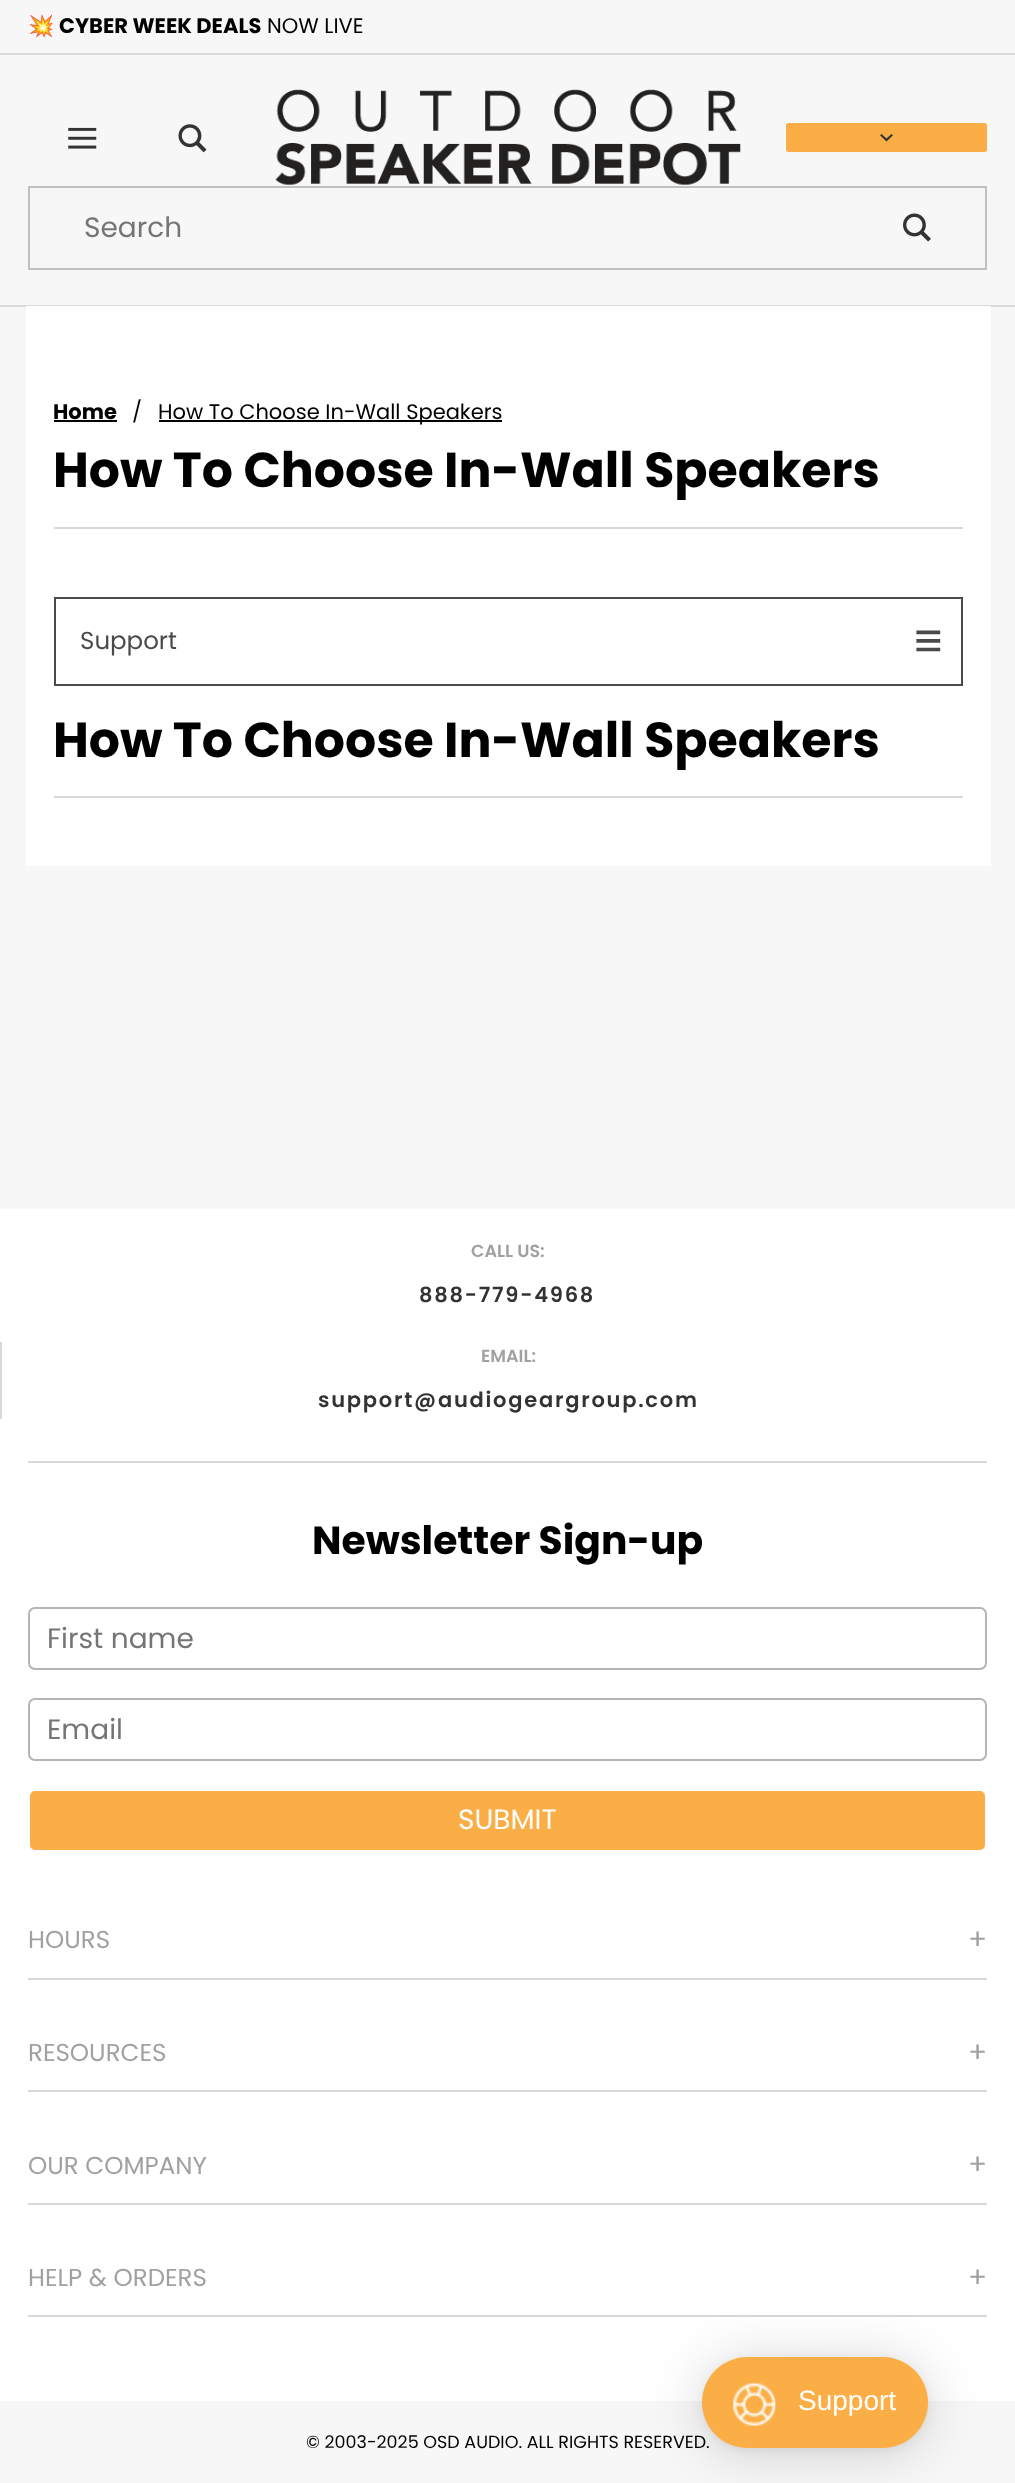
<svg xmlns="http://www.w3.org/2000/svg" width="1015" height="2483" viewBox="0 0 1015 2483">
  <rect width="100%" height="100%" fill="rgb(247,247,247)"/>
  <rect x="0" y="53" width="1015" height="2" fill="rgb(218,218,218)"/>
  <text x="28" y="33" font-family="Noto Color Emoji" font-size="21" font-weight="bold" fill="rgb(0,0,0)">💥</text>
  <text x="59" y="33" font-family="Poppins" font-size="21" font-weight="bold" fill="rgb(0,0,0)">CYBER WEEK DEALS</text>
  <text x="267" y="33" font-family="Poppins" font-size="21" fill="rgb(0,0,0)">NOW LIVE</text>
  <image x="68" y="127" width="29" height="22" href="pic1.png"/>
  <image x="178" y="124" width="29" height="29" href="pic2.png"/>
  <image x="275" y="89" width="466" height="96" href="pic3.png"/>
  <rect x="786" y="123" width="201" height="29" rx="2.5" fill="rgb(252,174,70)"/>
  <text x="880" y="143" font-family="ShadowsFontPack" font-size="13" fill="rgb(51,51,51)">1</text>
  <rect x="29" y="187" width="957" height="82" fill="none" stroke="rgb(192,192,192)" stroke-width="2"/>
  <text x="84" y="237" font-family="Poppins" font-size="28" fill="rgb(117,117,117)">Search</text>
  <image x="903" y="213" width="28" height="29" href="pic4.png"/>
  <rect x="0" y="305" width="1015" height="2" fill="rgb(218,218,218)"/>
  <rect x="26" y="306" width="965" height="560" fill="rgb(255,255,255)"/>
  <text x="53" y="419" font-family="Poppins" font-size="21" font-weight="bold" fill="rgb(0,0,0)">Home</text>
  <rect x="54" y="420" width="63" height="2" fill="rgb(0,0,0)"/>
  <text x="132" y="419" font-family="Poppins" font-size="21" fill="rgb(0,0,0)">/</text>
  <rect x="159" y="420" width="343" height="2" fill="rgb(0,0,0)"/>
  <text x="158" y="419" font-family="Poppins" font-size="21" fill="rgb(0,0,0)">How To Choose In-Wall Speakers</text>
  <text x="53" y="487" font-family="Poppins" font-size="49" font-weight="bold" fill="rgb(0,0,0)">How To Choose In-Wall Speakers</text>
  <rect x="54" y="527" width="909" height="2" fill="rgb(216,216,216)"/>
  <rect x="55" y="598" width="907" height="87" fill="none" stroke="rgb(74,74,74)" stroke-width="2"/>
  <text x="80" y="649" font-family="Poppins" font-size="24.5" fill="rgb(74,74,74)">Support</text>
  <text x="914" y="657" font-family="Liberation Sans" font-size="49" fill="rgb(74,74,74)">≡</text>
  <text x="53" y="757" font-family="Poppins" font-size="49" font-weight="bold" fill="rgb(0,0,0)">How To Choose In-Wall Speakers</text>
  <rect x="54" y="796" width="909" height="2" fill="rgb(216,216,216)"/>
  <rect x="0" y="1209" width="1015" height="1192" fill="rgb(255,255,255)"/>
  <text x="471" y="1257" font-family="Poppins" font-size="17.5" font-weight="600" fill="rgb(161,161,161)">CALL US:</text>
  <text x="419" y="1302" font-family="Poppins" font-size="21" font-weight="600" letter-spacing="1.75" fill="rgb(51,51,51)">888-779-4968</text>
  <rect x="0" y="1342" width="2" height="77" fill="rgb(216,216,216)"/>
  <text x="481" y="1362" font-family="Poppins" font-size="17.5" font-weight="600" fill="rgb(161,161,161)">EMAIL:</text>
  <text x="318" y="1407" font-family="Poppins" font-size="21" font-weight="600" letter-spacing="1.75" fill="rgb(51,51,51)">support@audiogeargroup.com</text>
  <rect x="28" y="1461" width="959" height="2" fill="rgb(216,216,216)"/>
  <text x="312" y="1554" font-family="Poppins" font-size="39.25" font-weight="bold" fill="rgb(0,0,0)">Newsletter Sign-up</text>
  <rect x="29" y="1608" width="957" height="61" rx="6" fill="none" stroke="rgb(181,181,181)" stroke-width="2"/>
  <text x="47" y="1648" font-family="Poppins" font-size="28" fill="rgb(117,117,117)">First name</text>
  <rect x="29" y="1699" width="957" height="61" rx="6" fill="none" stroke="rgb(181,181,181)" stroke-width="2"/>
  <text x="47" y="1739" font-family="Poppins" font-size="28" fill="rgb(117,117,117)">Email</text>
  <rect x="29" y="1790" width="957" height="61" rx="6" fill="rgb(252,174,70)" stroke="rgb(255,255,255)" stroke-width="2"/>
  <text x="458" y="1829" font-family="Poppins" font-size="28" fill="rgb(255,255,255)">SUBMIT</text>
  <rect x="28" y="1978" width="959" height="2" fill="rgb(216,216,216)"/>
  <text x="28" y="1948" font-family="Poppins" font-size="24.5" fill="rgb(161,161,161)">HOURS</text>
  <text x="968" y="1949" font-family="Poppins" font-size="28" fill="rgb(161,161,161)">+</text>
  <rect x="28" y="2090" width="959" height="2" fill="rgb(216,216,216)"/>
  <text x="28" y="2061" font-family="Poppins" font-size="24.5" fill="rgb(161,161,161)">RESOURCES</text>
  <text x="968" y="2062" font-family="Poppins" font-size="28" fill="rgb(161,161,161)">+</text>
  <rect x="28" y="2203" width="959" height="2" fill="rgb(216,216,216)"/>
  <text x="28" y="2174" font-family="Poppins" font-size="24.5" fill="rgb(161,161,161)">OUR COMPANY</text>
  <text x="968" y="2174" font-family="Poppins" font-size="28" fill="rgb(161,161,161)">+</text>
  <rect x="28" y="2315" width="959" height="2" fill="rgb(216,216,216)"/>
  <text x="28" y="2286" font-family="Poppins" font-size="24.5" fill="rgb(161,161,161)">HELP &amp; ORDERS</text>
  <text x="968" y="2287" font-family="Poppins" font-size="28" fill="rgb(161,161,161)">+</text>
  <rect x="702" y="2361" width="226" height="91" rx="45.5" fill="rgba(0,0,0,0.16)" filter="blur(28px)"/>
  <rect x="702" y="2359" width="226" height="91" rx="45.5" fill="rgba(0,0,0,0.06)" filter="blur(5px)"/>
  <text x="306" y="2448" font-family="Poppins" font-size="17.5" fill="rgb(0,0,0)">© 2003-2025 OSD AUDIO. ALL RIGHTS RESERVED.</text>
  <rect x="702" y="2357" width="226" height="91" rx="45.5" fill="rgb(252,174,70)"/>
  <image x="732" y="2383" width="44" height="43" href="pic5.png"/>
  <text x="798" y="2410" font-family="Liberation Sans" font-size="28" fill="rgb(255,255,255)">Support</text>
</svg>
